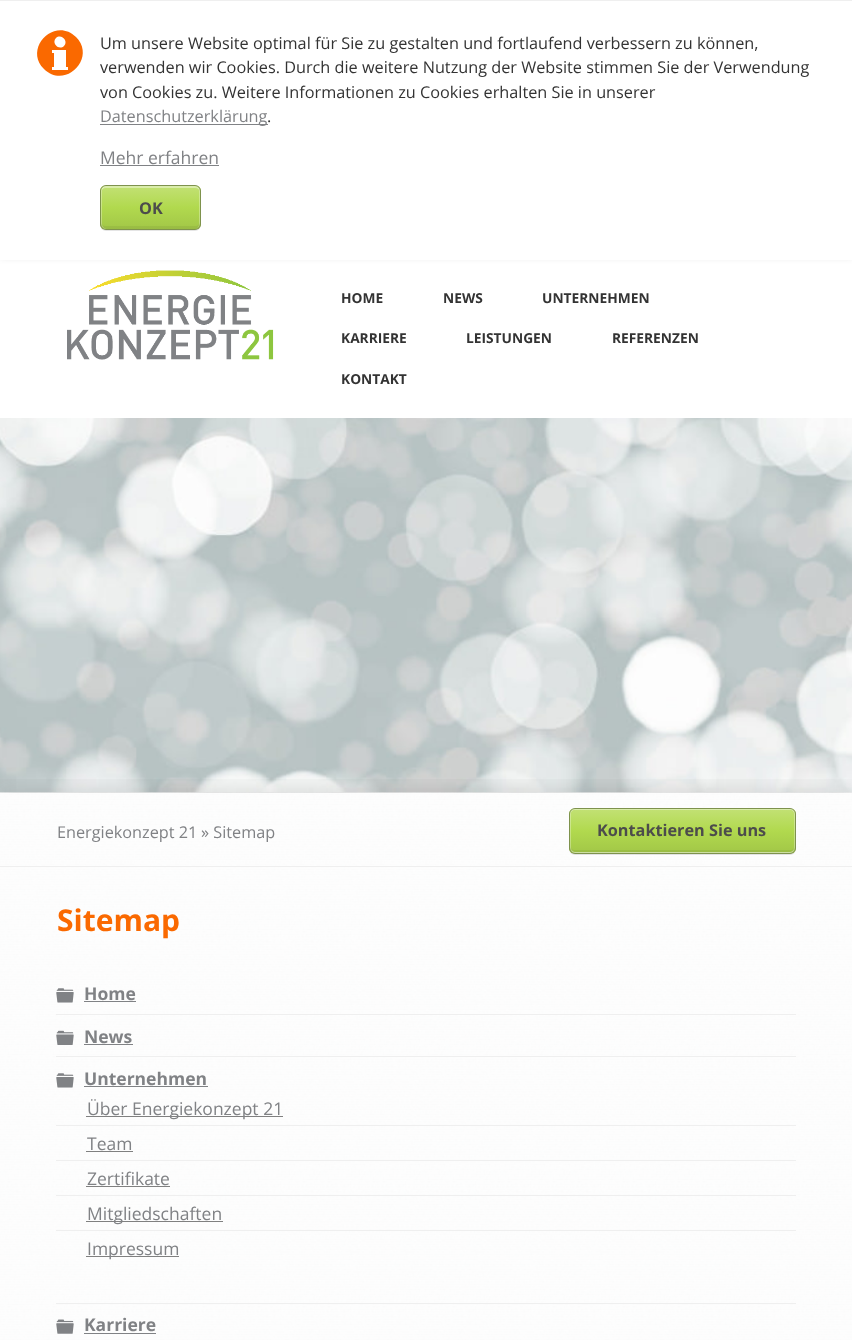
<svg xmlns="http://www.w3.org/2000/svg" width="852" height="1340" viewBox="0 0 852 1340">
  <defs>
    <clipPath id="clip1"><rect x="100" y="185" width="101" height="45" rx="6"/></clipPath>
    <linearGradient id="g1" gradientUnits="userSpaceOnUse" x1="151" y1="186" x2="151" y2="229"><stop offset="0" stop-color="rgb(194,225,116)"/><stop offset="0.5" stop-color="rgb(177,217,78)"/><stop offset="1" stop-color="rgb(162,199,71)"/></linearGradient>
    <clipPath id="clip2"><rect x="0" y="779" width="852" height="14"/></clipPath>
    <clipPath id="clip3"><rect x="569" y="808" width="227" height="46" rx="6"/></clipPath>
    <linearGradient id="g2" gradientUnits="userSpaceOnUse" x1="683" y1="809" x2="683" y2="853"><stop offset="0" stop-color="rgb(194,225,116)"/><stop offset="0.5" stop-color="rgb(177,217,78)"/><stop offset="1" stop-color="rgb(162,199,71)"/></linearGradient>
  </defs>
  <rect width="100%" height="100%" fill="rgb(255,255,255)"/>
  <image x="0" y="792" width="852" height="548" href="pic1.png"/>
  <rect x="0" y="-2" width="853" height="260" fill="rgba(0,0,0,0.1)" filter="blur(3px)"/>
  <rect x="0" y="1" width="852" height="259" fill="rgb(255,255,255)"/>
  <rect x="0" y="0" width="852" height="1" fill="rgb(239,239,239)"/>
  <path d="M76 37C55 16 23 48 44 69C65 90 97 58 76 37ZM56 38C61 33 69 41 64 46C59 51 51 43 56 38ZM68 70H52V67H54V53H52V50H66V67H68Z" fill="rgb(250,105,0)"/>
  <g font-family="Open Sans" font-size="16.25" fill="rgb(51,51,51)">
    <text>
      <tspan x="100" y="49">Um unsere Website optimal für Sie zu gestalten und fortlaufend verbessern zu können,</tspan>
      <tspan x="100" y="73">verwenden wir Cookies. Durch die weitere Nutzung der Website stimmen Sie der Verwendung</tspan>
      <tspan x="100" y="98">von Cookies zu. Weitere Informationen zu Cookies erhalten Sie in unserer</tspan>
    </text>
  </g>
  <rect x="100" y="124" width="168" height="1" fill="rgb(128,130,133)"/>
  <text x="100" y="122" font-family="Open Sans" font-size="16.25" fill="rgb(128,130,133)">Datenschutzerklärung</text>
  <text x="267" y="122" font-family="Open Sans" font-size="16.25" fill="rgb(51,51,51)">.</text>
  <text x="100" y="164" font-family="Open Sans" font-size="17.5" fill="rgb(128,130,133)">Mehr erfahren</text>
  <rect x="100" y="165" width="119" height="1" fill="rgb(128,130,133)"/>
  <rect x="100" y="186" width="101" height="45" rx="6" fill="rgba(0,0,0,0.1)" filter="blur(0.5px)"/>
  <g clip-path="url(#clip1)">
    <rect x="100" y="186" width="101" height="43" fill="url(#g1)"/>
  </g>
  <path d="M101 221V224C101 227 103 229 106 229H195C198 229 200 227 200 224V221C200 224 198 226 195 226H106C103 226 101 224 101 221Z" fill="rgba(0,0,0,0.05)"/>
  <path d="M194 229C201 229 200 224 200 218V196C200 191 201 186 194 186C197 186 199 188 199 191V224C199 227 197 229 194 229Z" fill="rgba(255,255,255,0.3)"/>
  <path d="M106 186C103 186 101 188 101 191V224C101 227 103 229 106 229H108C105 229 102 227 102 224V191C102 188 105 186 108 186Z" fill="rgba(255,255,255,0.3)"/>
  <path d="M106 188H195C198 188 200 190 200 192C200 182 186 186 180 186H121C115 186 101 182 101 192C101 190 103 188 106 188Z" fill="rgba(255,255,255,0.4)"/>
  <rect x="100.5" y="185.5" width="100" height="44" rx="5.5" fill="none" stroke="rgb(126,146,77)"/>
  <text x="139" y="214" font-family="Open Sans" font-size="16.25" font-weight="bold" fill="rgb(76,76,76)">OK</text>
  <image x="67" y="270" width="207" height="90" href="pic2.png"/>
  <g font-family="Open Sans" font-size="13.75" font-weight="bold" fill="rgb(51,51,51)">
    <text x="341" y="303">HOME</text>
    <text x="443" y="303">NEWS</text>
    <text x="542" y="303">UNTERNEHMEN</text>
    <text x="341" y="343">KARRIERE</text>
    <text x="466" y="343">LEISTUNGEN</text>
    <text x="612" y="343">REFERENZEN</text>
    <text x="341" y="384">KONTAKT</text>
  </g>
  <image x="0" y="418" width="852" height="375" href="pic3.png"/>
  <g clip-path="url(#clip2)">
    <rect x="0" y="793" width="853" height="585" fill="rgba(0,0,0,0.15)" filter="blur(12.5px)"/>
  </g>
  <rect x="0" y="793" width="852" height="547" fill="rgba(255,255,255,0.75)"/>
  <rect x="0" y="866" width="852" height="1" fill="rgb(239,239,239)"/>
  <g font-family="Open Sans" font-size="16.25" fill="rgb(128,130,133)">
    <text x="57" y="838">Energiekonzept 21</text>
    <text x="201" y="838">» Sitemap</text>
  </g>
  <rect x="569" y="809" width="227" height="46" rx="6" fill="rgba(0,0,0,0.1)" filter="blur(0.5px)"/>
  <g clip-path="url(#clip3)">
    <rect x="569" y="809" width="227" height="44" fill="url(#g2)"/>
  </g>
  <path d="M570 845V848C570 851 572 853 575 853H790C793 853 795 851 795 848V845C795 848 793 850 790 850H575C572 850 570 848 570 845Z" fill="rgba(0,0,0,0.05)"/>
  <path d="M571 851C572 852 574 853 575 853H790C793 853 795 851 795 848V814C795 811 793 809 790 809H789C792 809 794 811 794 814V848C794 850 792 852 789 852H574Z" fill="rgba(255,255,255,0.3)"/>
  <path d="M575 809C572 809 570 811 570 814V848C570 851 572 853 575 853H790C791 853 793 852 794 851L791 852H576C573 852 571 850 571 848V814C571 811 573 809 576 809Z" fill="rgba(255,255,255,0.3)"/>
  <path d="M575 810H790C793 810 795 812 795 815V814C795 811 793 809 790 809H575C572 809 570 811 570 814V815C570 812 572 810 575 810Z" fill="rgba(255,255,255,0.4)"/>
  <rect x="569.5" y="808.5" width="226" height="45" rx="5.5" fill="none" stroke="rgb(126,146,77)"/>
  <text x="597" y="836" font-family="Open Sans" font-size="16.25" font-weight="bold" fill="rgb(76,76,76)">Kontaktieren Sie uns</text>
  <text x="57" y="931" font-family="Open Sans" font-size="30" font-weight="bold" fill="rgb(250,105,0)">Sitemap</text>
  <image x="56" y="988" width="18" height="15" href="pic4.png"/>
  <text x="84" y="1000" font-family="Open Sans" font-size="17.5" font-weight="bold" fill="rgb(128,130,133)">Home</text>
  <rect x="84" y="1001" width="52" height="1" fill="rgb(128,130,133)"/>
  <rect x="56" y="1014" width="740" height="1" fill="rgb(239,239,239)"/>
  <image x="56" y="1030" width="18" height="15" href="pic5.png"/>
  <text x="84" y="1043" font-family="Open Sans" font-size="17.5" font-weight="bold" fill="rgb(128,130,133)">News</text>
  <rect x="84" y="1044" width="49" height="1" fill="rgb(128,130,133)"/>
  <rect x="56" y="1056" width="740" height="1" fill="rgb(239,239,239)"/>
  <image x="56" y="1073" width="18" height="15" href="pic6.png"/>
  <text x="84" y="1085" font-family="Open Sans" font-size="17.5" font-weight="bold" fill="rgb(128,130,133)">Unternehmen</text>
  <rect x="84" y="1086" width="124" height="1" fill="rgb(128,130,133)"/>
  <rect x="86" y="1116" width="197" height="1" fill="rgb(128,128,128)"/>
  <text x="87" y="1115" font-family="Open Sans" font-size="17.5" fill="rgb(128,130,133)">Über Energiekonzept 21</text>
  <rect x="56" y="1125" width="740" height="1" fill="rgb(239,239,239)"/>
  <text x="87" y="1150" font-family="Open Sans" font-size="17.5" fill="rgb(128,130,133)">Team</text>
  <rect x="86" y="1151" width="47" height="1" fill="rgb(128,128,128)"/>
  <rect x="56" y="1160" width="740" height="1" fill="rgb(239,239,239)"/>
  <text x="87" y="1185" font-family="Open Sans" font-size="17.5" fill="rgb(128,130,133)">Zertifikate</text>
  <rect x="86" y="1186" width="84" height="1" fill="rgb(128,128,128)"/>
  <rect x="56" y="1195" width="740" height="1" fill="rgb(239,239,239)"/>
  <rect x="86" y="1221" width="137" height="1" fill="rgb(128,128,128)"/>
  <text x="87" y="1220" font-family="Open Sans" font-size="17.5" fill="rgb(128,130,133)">Mitgliedschaften</text>
  <rect x="56" y="1230" width="740" height="1" fill="rgb(239,239,239)"/>
  <rect x="86" y="1256" width="93" height="1" fill="rgb(128,128,128)"/>
  <text x="87" y="1255" font-family="Open Sans" font-size="17.5" fill="rgb(128,130,133)">Impressum</text>
  <rect x="56" y="1303" width="740" height="1" fill="rgb(239,239,239)"/>
  <image x="56" y="1319" width="18" height="15" href="pic7.png"/>
  <text x="84" y="1331" font-family="Open Sans" font-size="17.5" font-weight="bold" fill="rgb(128,130,133)">Karriere</text>
  <rect x="84" y="1333" width="72" height="1" fill="rgb(128,130,133)"/>
</svg>
